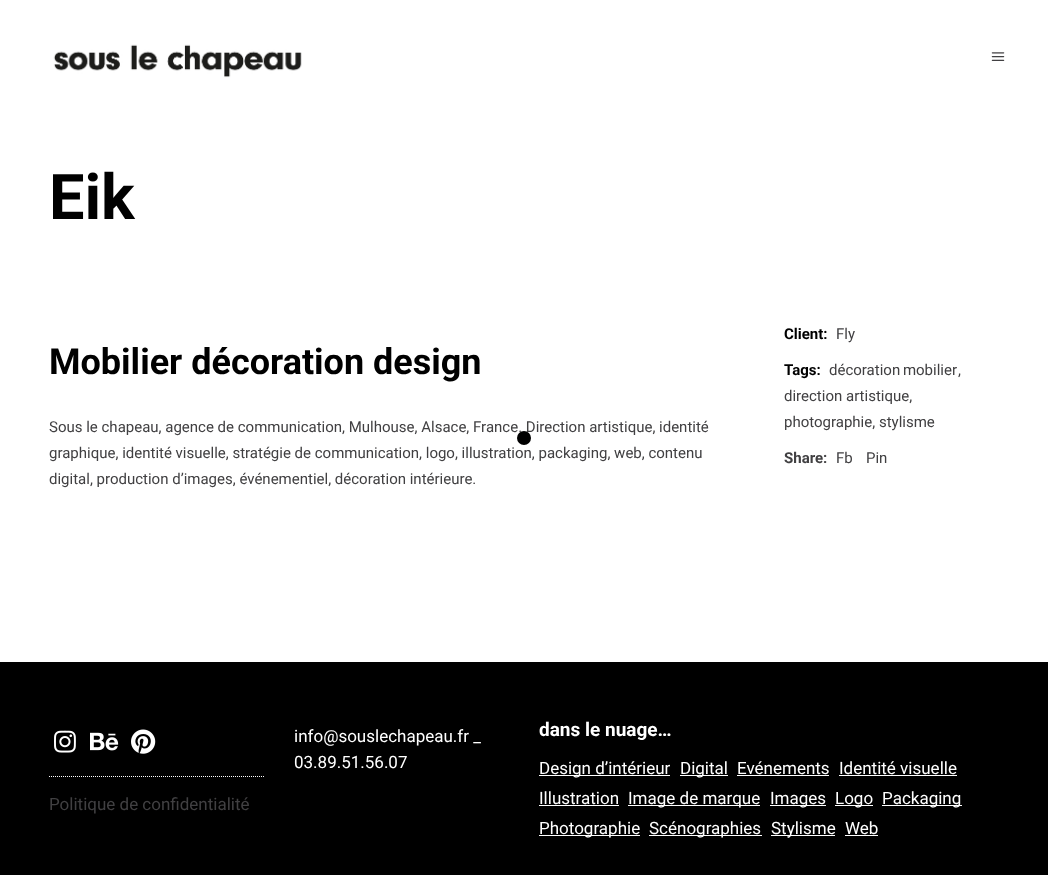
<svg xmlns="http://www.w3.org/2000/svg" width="1048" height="875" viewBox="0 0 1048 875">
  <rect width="100%" height="100%" fill="rgb(255,255,255)"/>
  <image x="53" y="44" width="249" height="34" href="pic1.png"/>
  <image x="991" y="52" width="14" height="9" href="pic2.png"/>
  <text x="49" y="219" font-family="Roboto" font-size="63" font-weight="bold" fill="rgb(0,0,0)">Eik</text>
  <text x="49" y="374" font-family="Roboto" font-size="36" font-weight="bold" fill="rgb(0,0,0)">Mobilier décoration design</text>
  <g font-family="Roboto" font-size="15" fill="rgb(65,64,66)">
    <text>
      <tspan x="49" y="432">Sous le chapeau, agence de communication, Mulhouse, Alsace, France. Direction artistique, identité</tspan>
      <tspan x="49" y="458">graphique, identité visuelle, stratégie de communication, logo, illustration, packaging, web, contenu</tspan>
      <tspan x="49" y="484">digital, production d’images, événementiel, décoration intérieure.</tspan>
    </text>
  </g>
  <text x="784" y="339" font-family="Roboto" font-size="15" font-weight="bold" fill="rgb(0,0,0)">Client:</text>
  <text x="836" y="339" font-family="Roboto" font-size="15" fill="rgb(65,64,66)">Fly</text>
  <text x="784" y="375" font-family="Roboto" font-size="15" font-weight="bold" fill="rgb(0,0,0)">Tags:</text>
  <g font-family="Roboto" font-size="15" fill="rgb(65,64,66)">
    <text x="829" y="375" word-spacing="-1">décoration mobilier</text>
    <text x="958" y="375">,</text>
    <text>
      <tspan x="784" y="401">direction artistique,</tspan>
      <tspan x="784" y="427">photographie, stylisme</tspan>
    </text>
  </g>
  <text x="784" y="463" font-family="Roboto" font-size="15" font-weight="bold" fill="rgb(65,64,66)">Share:</text>
  <g font-family="Roboto" font-size="15" fill="rgb(65,64,66)">
    <text x="836" y="463">Fb</text>
    <text x="866" y="463">Pin</text>
  </g>
  <rect x="0" y="662" width="1048" height="213" fill="rgb(0,0,0)"/>
  <g font-family="Roboto" font-size="17" fill="rgb(255,255,255)">
    <text>
      <tspan x="294" y="742">info@souslechapeau.fr _</tspan>
      <tspan x="294" y="768">03.89.51.56.07</tspan>
    </text>
  </g>
  <text x="539" y="736" font-family="Roboto" font-size="19" font-weight="bold" fill="rgb(255,255,255)">dans le nuage…</text>
  <rect x="539" y="775" width="131" height="1" fill="rgb(255,255,255)"/>
  <text x="539" y="774" font-family="Roboto" font-size="17" fill="rgb(255,255,255)">Design d’intérieur</text>
  <rect x="680" y="775" width="48" height="1" fill="rgb(255,255,255)"/>
  <g font-family="Roboto" font-size="17" fill="rgb(255,255,255)">
    <text x="680" y="774">Digital</text>
    <text x="737" y="774">Evénements</text>
  </g>
  <rect x="737" y="775" width="92" height="1" fill="rgb(255,255,255)"/>
  <text x="839" y="774" font-family="Roboto" font-size="17" fill="rgb(255,255,255)">Identité visuelle</text>
  <rect x="839" y="775" width="118" height="1" fill="rgb(255,255,255)"/>
  <text x="539" y="804" font-family="Roboto" font-size="17" fill="rgb(255,255,255)">Illustration</text>
  <rect x="539" y="805" width="80" height="1" fill="rgb(255,255,255)"/>
  <rect x="628" y="805" width="132" height="1" fill="rgb(255,255,255)"/>
  <text x="628" y="804" font-family="Roboto" font-size="17" fill="rgb(255,255,255)">Image de marque</text>
  <rect x="770" y="805" width="56" height="1" fill="rgb(255,255,255)"/>
  <text x="770" y="804" font-family="Roboto" font-size="17" fill="rgb(255,255,255)">Images</text>
  <rect x="835" y="805" width="38" height="1" fill="rgb(255,255,255)"/>
  <text x="835" y="804" font-family="Roboto" font-size="17" fill="rgb(255,255,255)">Logo</text>
  <rect x="882" y="805" width="80" height="1" fill="rgb(255,255,255)"/>
  <text x="882" y="804" font-family="Roboto" font-size="17" fill="rgb(255,255,255)">Packaging</text>
  <rect x="539" y="835" width="101" height="1" fill="rgb(255,255,255)"/>
  <text x="539" y="834" font-family="Roboto" font-size="17" fill="rgb(255,255,255)">Photographie</text>
  <rect x="649" y="835" width="113" height="1" fill="rgb(255,255,255)"/>
  <text x="649" y="834" font-family="Roboto" font-size="17" fill="rgb(255,255,255)">Scénographies</text>
  <rect x="771" y="835" width="64" height="1" fill="rgb(255,255,255)"/>
  <g font-family="Roboto" font-size="17" fill="rgb(255,255,255)">
    <text x="771" y="834">Stylisme</text>
    <text x="845" y="834">Web</text>
  </g>
  <rect x="845" y="835" width="33" height="1" fill="rgb(255,255,255)"/>
  <image x="54" y="730" width="22" height="23" href="pic3.png"/>
  <image x="90" y="732" width="29" height="19" href="pic4.png"/>
  <image x="131" y="729" width="25" height="25" href="pic5.png"/>
  <path d="M49 776.5H264" fill="none" stroke="rgb(255,255,255)" stroke-dasharray="1 1"/>
  <text x="49" y="810" font-family="Roboto" font-size="17" fill="rgb(65,64,66)">Politique de confidentialité</text>
  <circle cx="524" cy="438" r="7" fill="rgb(0,0,0)"/>
</svg>
